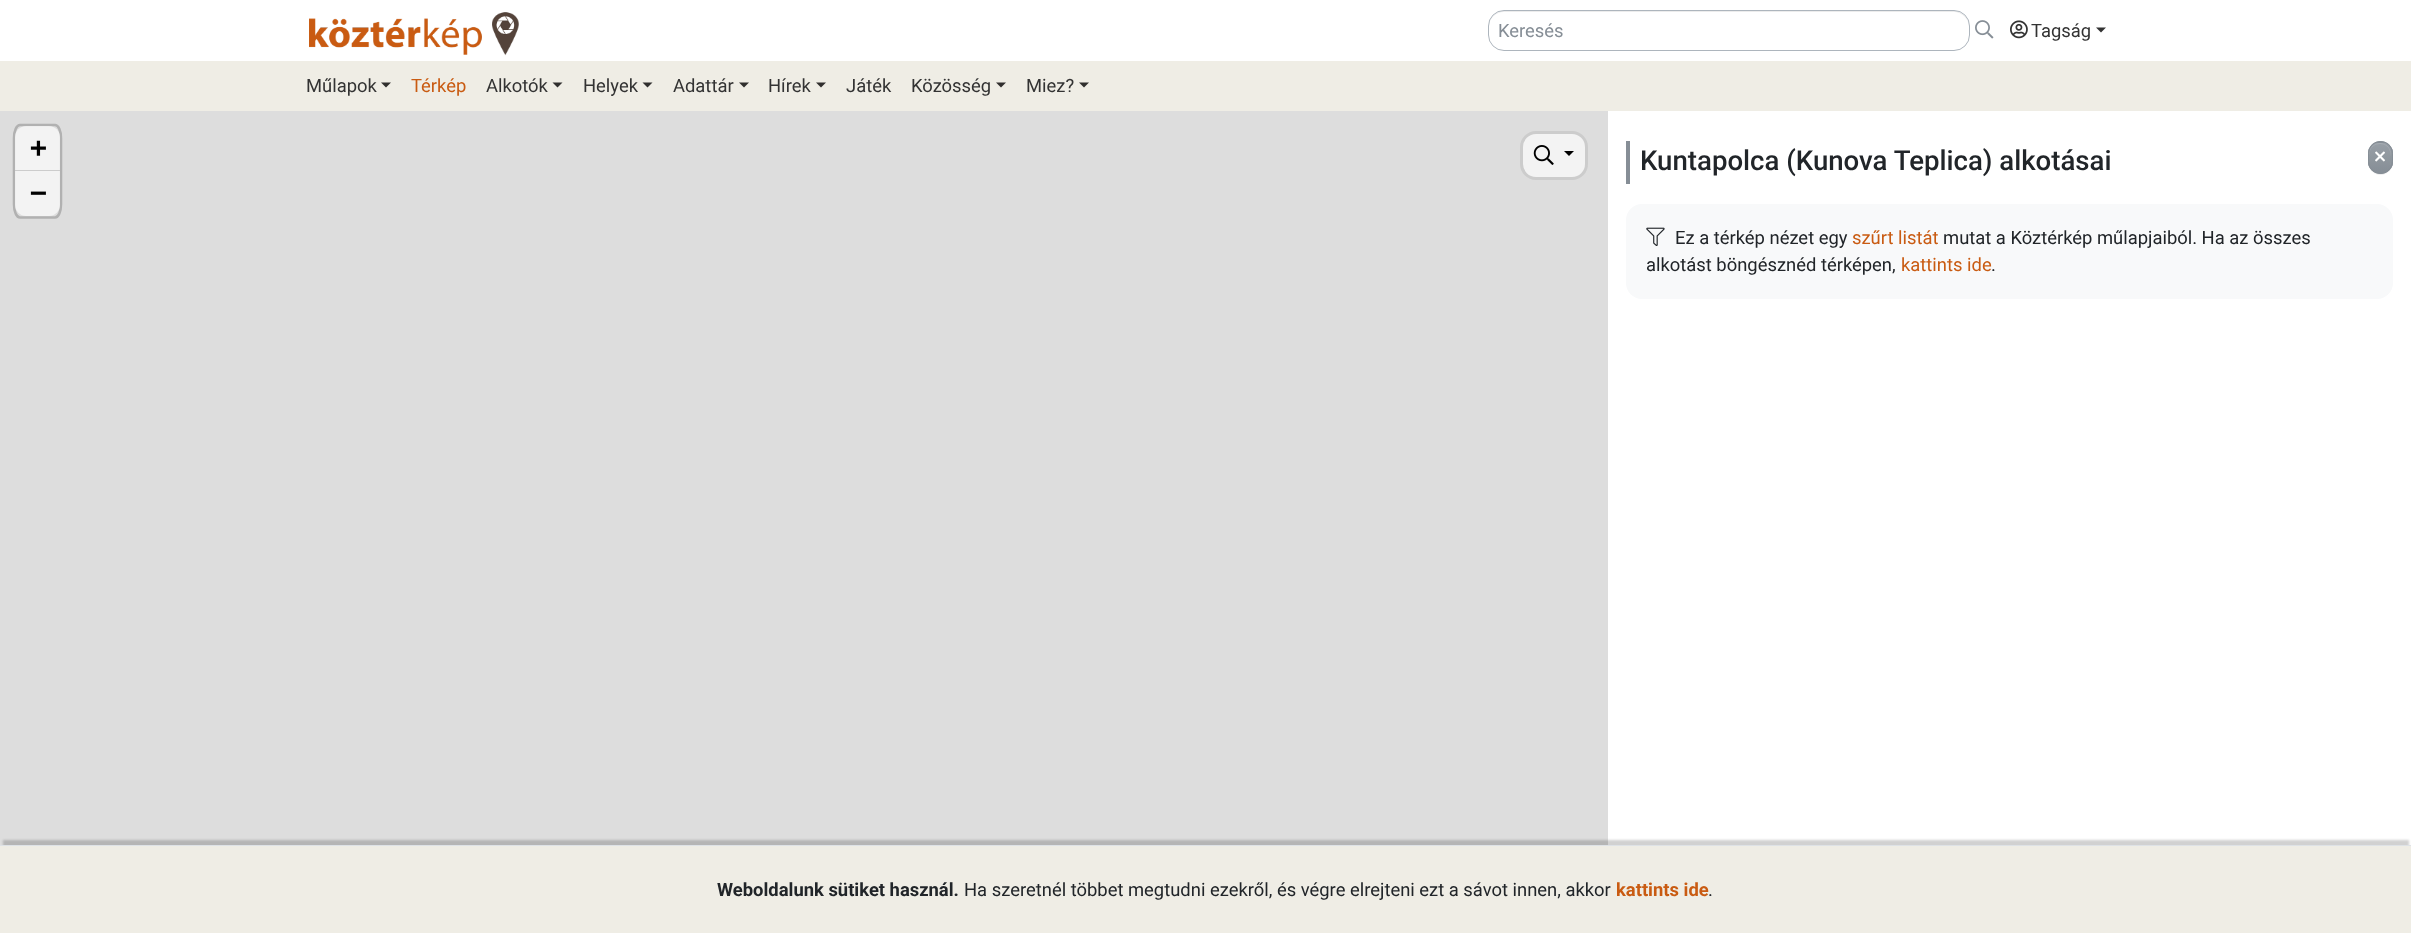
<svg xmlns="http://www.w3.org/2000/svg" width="2411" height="933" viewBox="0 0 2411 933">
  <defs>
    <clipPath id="clip1"><rect x="2368" y="141" width="25" height="33" rx="12.5"/></clipPath>
    <linearGradient id="g1" gradientUnits="userSpaceOnUse" x1="2380" y1="143" x2="2380" y2="173"><stop offset="0" stop-color="rgb(152,159,166)"/><stop offset="1" stop-color="rgb(134,142,150)"/></linearGradient>
  </defs>
  <rect width="100%" height="100%" fill="rgb(255,255,255)"/>
  <image x="309" y="12" width="210" height="44" href="pic1.png"/>
  <path d="M1504 12H1954C1962 12 1969 19 1969 27V26C1969 18 1962 11 1954 11H1504C1496 11 1489 18 1489 26V27C1489 19 1495 12 1504 12Z" fill="rgb(236,236,236)"/>
  <rect x="1488.5" y="10.5" width="481" height="40" rx="15.5" fill="none" stroke="rgb(173,181,189)"/>
  <text x="1498" y="37" font-family="Roboto" font-size="18.4" fill="rgb(134,142,150)">Keresés</text>
  <image x="1975" y="20" width="19" height="19" href="pic2.png"/>
  <image x="2010" y="20" width="18" height="19" href="pic3.png"/>
  <text x="2031" y="37" font-family="Roboto" font-size="18.4" fill="rgb(51,51,51)">Tagság</text>
  <path d="M2096 27.5H2106L2101 32.5Z" fill="rgb(51,51,51)"/>
  <rect x="0" y="61" width="2411" height="50" fill="rgb(239,237,229)"/>
  <text x="306" y="92" font-family="Roboto" font-size="18.4" fill="rgb(51,51,51)">Műlapok</text>
  <path d="M381 82.5H391L386 87.5Z" fill="rgb(48,47,46)"/>
  <text x="411" y="92" font-family="Roboto" font-size="18.4" fill="rgb(201,91,18)">Térkép</text>
  <text x="486" y="92" font-family="Roboto" font-size="18.4" fill="rgb(51,51,51)">Alkotók</text>
  <path d="M552.5 82.5H562.5L557.5 87.5Z" fill="rgb(48,47,46)"/>
  <text x="583" y="92" font-family="Roboto" font-size="18.4" fill="rgb(51,51,51)">Helyek</text>
  <path d="M642.5 82.5H652.5L647.5 87.5Z" fill="rgb(48,47,46)"/>
  <text x="673" y="92" font-family="Roboto" font-size="18.4" fill="rgb(51,51,51)">Adattár</text>
  <path d="M739 82.5H749L744 87.5Z" fill="rgb(48,47,46)"/>
  <text x="768" y="92" font-family="Roboto" font-size="18.4" fill="rgb(51,51,51)">Hírek</text>
  <path d="M816 82.5H826L821 87.5Z" fill="rgb(48,47,46)"/>
  <g font-family="Roboto" font-size="18.4" fill="rgb(51,51,51)">
    <text x="846" y="92">Játék</text>
    <text x="911" y="92">Közösség</text>
  </g>
  <path d="M996 82.5H1006L1001 87.5Z" fill="rgb(48,47,46)"/>
  <text x="1026" y="92" font-family="Roboto" font-size="18.4" fill="rgb(51,51,51)">Miez?</text>
  <path d="M1079 82.5H1089L1084 87.5Z" fill="rgb(48,47,46)"/>
  <rect x="0" y="111" width="1608" height="734" fill="rgb(221,221,221)"/>
  <path d="M20 125H55C58.5 125 61 131 61 138V204.5C61 211.5 58.5 217.5 55 217.5H20C16.5 217.5 14 211.5 14 204.5V138C14 131 16.5 125 20 125Z" fill="none" stroke="rgb(177,177,177)" stroke-width="2.5"/>
  <path d="M26 126H49C55 126 60 131 60 137V171H15V137C15 131 20 126 26 126Z" fill="rgba(255,255,255,0.65)"/>
  <rect x="15" y="170" width="45" height="1" fill="rgb(204,204,204)"/>
  <text x="30" y="157" font-family="DejaVu Sans Mono" font-size="28" font-weight="bold" fill="rgb(0,0,0)">+</text>
  <path d="M15 171H60V205C60 211 55 216 49 216H26C20 216 15 211 15 205Z" fill="rgba(255,255,255,0.65)"/>
  <text x="30" y="202" font-family="DejaVu Sans Mono" font-size="28" font-weight="bold" fill="rgb(0,0,0)">−</text>
  <rect x="1521.5" y="132.5" width="65" height="46" rx="14.5" fill="rgb(243,243,243)" stroke="rgb(204,204,204)" stroke-width="3"/>
  <image x="1533" y="145" width="21" height="20" href="pic4.png"/>
  <path d="M1564 151H1574L1569 156Z" fill="rgb(0,0,0)"/>
  <rect x="1626" y="141" width="4" height="43" fill="rgb(134,142,150)"/>
  <text x="1640" y="170" font-family="Roboto" font-size="27.6" font-weight="500" fill="rgb(33,37,41)">Kuntapolca (Kunova Teplica) alkotásai</text>
  <rect x="2368" y="143" width="25" height="32" rx="12.5" fill="rgba(0,0,0,0.07)" filter="blur(0.5px)"/>
  <rect x="2368" y="141" width="25" height="33" rx="12.5" fill="rgb(134,142,150)"/>
  <g clip-path="url(#clip1)">
    <rect x="2368" y="143" width="25" height="30" fill="url(#g1)"/>
  </g>
  <path d="M2380 144C2391.5 144 2392 157 2390.5 165.5C2391 164.5 2391 163.5 2391 162V154C2391 148 2386 143 2380 143C2374 143 2369 148 2369 154V162C2369 163.5 2369 164.5 2369.5 165.5C2368 157 2368.5 144 2380 144Z" fill="rgba(255,255,255,0.15)"/>
  <rect x="2368.5" y="141.5" width="24" height="32" rx="12" fill="none" stroke="rgb(134,142,150)"/>
  <image x="2375" y="151" width="10" height="11" href="pic5.png"/>
  <rect x="1626" y="204" width="767" height="95" rx="16" fill="rgb(248,249,250)"/>
  <image x="1646" y="227" width="19" height="19" href="pic6.png"/>
  <text x="1675" y="244" font-family="Roboto" font-size="18.4" fill="rgb(33,37,41)">Ez a térkép nézet egy</text>
  <text x="1852" y="244" font-family="Roboto" font-size="18.4" fill="rgb(201,91,18)">szűrt listát</text>
  <g font-family="Roboto" font-size="18.4" fill="rgb(33,37,41)">
    <text x="1943" y="244">mutat a Köztérkép műlapjaiból. Ha az összes</text>
    <text x="1646" y="271">alkotást böngésznéd térképen,</text>
  </g>
  <text x="1901" y="271" font-family="Roboto" font-size="18.4" fill="rgb(201,91,18)">kattints ide</text>
  <text x="1991" y="271" font-family="Roboto" font-size="18.4" fill="rgb(33,37,41)">.</text>
  <rect x="3" y="840" width="2406" height="84" fill="rgba(0,0,0,0.18)" filter="blur(1px)"/>
  <rect x="0" y="846" width="2411" height="87" fill="rgb(239,237,229)"/>
  <rect x="0" y="845" width="2411" height="1" fill="rgb(222,226,230)"/>
  <text x="717" y="896" font-family="Roboto" font-size="18.4" font-weight="bold" fill="rgb(33,37,41)">Weboldalunk sütiket használ.</text>
  <text x="964" y="896" font-family="Roboto" font-size="18.4" fill="rgb(33,37,41)">Ha szeretnél többet megtudni ezekről, és végre elrejteni ezt a sávot innen, akkor</text>
  <text x="1616" y="896" font-family="Roboto" font-size="18.4" font-weight="bold" fill="rgb(201,91,18)">kattints ide</text>
  <text x="1708" y="896" font-family="Roboto" font-size="18.4" fill="rgb(33,37,41)">.</text>
</svg>
